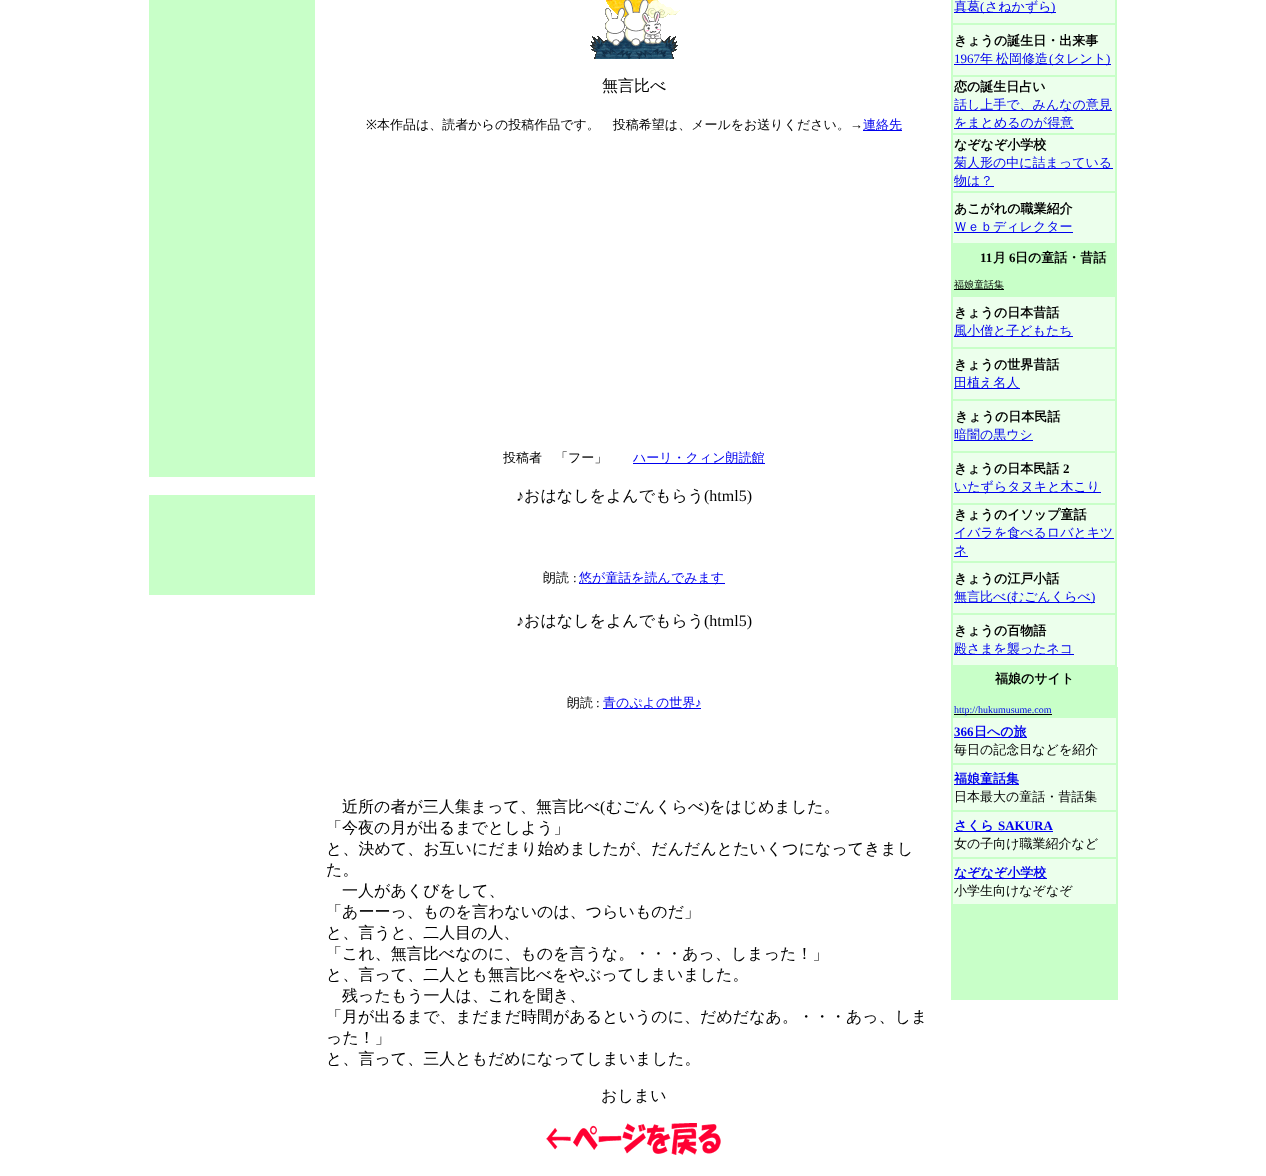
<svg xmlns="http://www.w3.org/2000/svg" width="1266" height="1176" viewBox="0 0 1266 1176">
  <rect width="100%" height="100%" fill="rgb(255,255,255)"/>
  <rect x="149" y="0" width="166" height="477" fill="rgb(200,255,200)"/>
  <rect x="149" y="495" width="166" height="100" fill="rgb(200,255,200)"/>
  <image x="590" y="0" width="90" height="59" href="pic1.png"/>
  <text x="602" y="91" font-family="WenQuanYi Zen Hei" font-size="16" font-weight="500" fill="rgb(0,0,0)">無言比べ</text>
  <text x="366" y="129" font-family="Noto Sans" font-size="13" fill="rgb(0,0,0)">※</text>
  <text x="377" y="129" font-family="WenQuanYi Zen Hei" font-size="13" font-weight="500" fill="rgb(0,0,0)">本作品は、読者からの投稿作品です。　投稿希望は、メールをお送りください。</text>
  <text x="850" y="129" font-family="Liberation Serif" font-size="13" fill="rgb(0,0,0)">→</text>
  <rect x="863" y="130" width="39" height="1" fill="rgb(0,0,238)"/>
  <text x="863" y="129" font-family="WenQuanYi Zen Hei" font-size="13" font-weight="500" fill="rgb(0,0,238)">連絡先</text>
  <text x="503" y="462" font-family="WenQuanYi Zen Hei" font-size="13" font-weight="500" fill="rgb(0,0,0)">投稿者　「フー」</text>
  <rect x="633" y="463" width="132" height="1" fill="rgb(0,0,238)"/>
  <text x="633" y="462" font-family="WenQuanYi Zen Hei" font-size="13" font-weight="500" fill="rgb(0,0,238)">ハーリ・クィン朗読館</text>
  <text x="516" y="501" font-family="Liberation Serif" font-size="16" fill="rgb(0,0,0)">♪</text>
  <text x="524" y="501" font-family="WenQuanYi Zen Hei" font-size="16" font-weight="500" fill="rgb(0,0,0)">おはなしをよんでもらう</text>
  <text x="704" y="501" font-family="Liberation Serif" font-size="16" fill="rgb(0,0,0)">(html5)</text>
  <text x="543" y="582" font-family="WenQuanYi Zen Hei" font-size="13" font-weight="500" fill="rgb(0,0,0)">朗読</text>
  <text x="573" y="582" font-family="Liberation Serif" font-size="13" fill="rgb(0,0,0)">:</text>
  <rect x="579" y="583" width="146" height="1" fill="rgb(0,0,238)"/>
  <text x="579" y="582" font-family="WenQuanYi Zen Hei" font-size="13" font-weight="500" fill="rgb(0,0,238)">悠が童話を読んでみます</text>
  <text x="516" y="626" font-family="Liberation Serif" font-size="16" fill="rgb(0,0,0)">♪</text>
  <text x="524" y="626" font-family="WenQuanYi Zen Hei" font-size="16" font-weight="500" fill="rgb(0,0,0)">おはなしをよんでもらう</text>
  <text x="704" y="626" font-family="Liberation Serif" font-size="16" fill="rgb(0,0,0)">(html5)</text>
  <text x="567" y="707" font-family="WenQuanYi Zen Hei" font-size="13" font-weight="500" fill="rgb(0,0,0)">朗読</text>
  <text x="596" y="707" font-family="Liberation Serif" font-size="13" fill="rgb(0,0,0)">:</text>
  <rect x="603" y="708" width="98" height="1" fill="rgb(0,0,238)"/>
  <text x="603" y="707" font-family="WenQuanYi Zen Hei" font-size="13" font-weight="500" fill="rgb(0,0,238)">青のぷよの世界</text>
  <text x="695" y="707" font-family="Liberation Serif" font-size="13" fill="rgb(0,0,238)">♪</text>
  <text x="342" y="812" font-family="WenQuanYi Zen Hei" font-size="16" font-weight="500" fill="rgb(0,0,0)">近所の者が三人集まって、無言比べ</text>
  <text x="600" y="812" font-family="Liberation Serif" font-size="16" fill="rgb(0,0,0)">(</text>
  <text x="606" y="812" font-family="WenQuanYi Zen Hei" font-size="16" font-weight="500" fill="rgb(0,0,0)">むごんくらべ</text>
  <text x="704" y="812" font-family="Liberation Serif" font-size="16" fill="rgb(0,0,0)">)</text>
  <g font-family="WenQuanYi Zen Hei" font-size="16" font-weight="500" fill="rgb(0,0,0)">
    <text x="709" y="812">をはじめました。</text>
    <text>
      <tspan x="326" y="833">「今夜の月が出るまでとしよう」</tspan>
      <tspan x="326" y="854">と、決めて、お互いにだまり始めましたが、だんだんとたいくつになってきまし</tspan>
      <tspan x="326" y="875">た。</tspan>
    </text>
    <text x="342" y="896">一人があくびをして、</text>
    <text>
      <tspan x="326" y="917">「あーーっ、ものを言わないのは、つらいものだ」</tspan>
      <tspan x="326" y="938">と、言うと、二人目の人、</tspan>
      <tspan x="326" y="959">「これ、無言比べなのに、ものを言うな。・・・あっ、しまった！」</tspan>
      <tspan x="326" y="980">と、言って、二人とも無言比べをやぶってしまいました。</tspan>
    </text>
    <text x="342" y="1001">残ったもう一人は、これを聞き、</text>
    <text>
      <tspan x="326" y="1022">「月が出るまで、まだまだ時間があるというのに、だめだなあ。・・・あっ、しま</tspan>
      <tspan x="326" y="1043">った！」</tspan>
      <tspan x="326" y="1064">と、言って、三人ともだめになってしまいました。</tspan>
    </text>
    <text x="601" y="1101">おしまい</text>
  </g>
  <image x="546" y="1123" width="175" height="32" href="pic2.png"/>
  <rect x="951" y="0" width="166" height="667" fill="rgb(200,255,200)"/>
  <rect x="953" y="0" width="162" height="23" fill="rgb(236,255,236)"/>
  <rect x="954" y="12" width="102" height="1" fill="rgb(0,0,238)"/>
  <text x="954" y="11" font-family="WenQuanYi Zen Hei" font-size="13" font-weight="500" fill="rgb(0,0,238)">真葛</text>
  <text x="980" y="11" font-family="Liberation Serif" font-size="13" fill="rgb(0,0,238)">(</text>
  <text x="985" y="11" font-family="WenQuanYi Zen Hei" font-size="13" font-weight="500" fill="rgb(0,0,238)">さねかずら</text>
  <text x="1051" y="11" font-family="Liberation Serif" font-size="13" fill="rgb(0,0,238)">)</text>
  <rect x="953" y="25" width="162" height="50" fill="rgb(236,255,236)"/>
  <text x="954" y="45" font-family="WenQuanYi Zen Hei" font-size="13" font-weight="bold" fill="rgb(0,0,0)">きょうの誕生日・出来事</text>
  <text x="954" y="63" font-family="Liberation Serif" font-size="13" fill="rgb(0,0,238)">1967</text>
  <rect x="954" y="64" width="157" height="1" fill="rgb(0,0,238)"/>
  <text x="980" y="63" word-spacing="-1" font-family="WenQuanYi Zen Hei" font-size="13" font-weight="500" fill="rgb(0,0,238)">年 松岡修造</text>
  <text x="1049" y="63" font-family="Liberation Serif" font-size="13" fill="rgb(0,0,238)">(</text>
  <text x="1053" y="63" font-family="WenQuanYi Zen Hei" font-size="13" font-weight="500" fill="rgb(0,0,238)">タレント</text>
  <text x="1106" y="63" font-family="Liberation Serif" font-size="13" fill="rgb(0,0,238)">)</text>
  <rect x="953" y="77" width="162" height="56" fill="rgb(236,255,236)"/>
  <text x="954" y="91" font-family="WenQuanYi Zen Hei" font-size="13" font-weight="bold" fill="rgb(0,0,0)">恋の誕生日占い</text>
  <rect x="954" y="110" width="158" height="1" fill="rgb(0,0,238)"/>
  <text x="954" y="109" font-family="WenQuanYi Zen Hei" font-size="13" font-weight="500" fill="rgb(0,0,238)">話し上手で、みんなの意見</text>
  <rect x="954" y="128" width="120" height="1" fill="rgb(0,0,238)"/>
  <text x="954" y="127" font-family="WenQuanYi Zen Hei" font-size="13" font-weight="500" fill="rgb(0,0,238)">をまとめるのが得意</text>
  <rect x="953" y="135" width="162" height="56" fill="rgb(236,255,236)"/>
  <text x="954" y="149" font-family="WenQuanYi Zen Hei" font-size="13" font-weight="bold" fill="rgb(0,0,0)">なぞなぞ小学校</text>
  <rect x="954" y="168" width="159" height="1" fill="rgb(0,0,238)"/>
  <text x="954" y="167" font-family="WenQuanYi Zen Hei" font-size="13" font-weight="500" fill="rgb(0,0,238)">菊人形の中に詰まっている</text>
  <rect x="954" y="186" width="40" height="1" fill="rgb(0,0,238)"/>
  <text x="954" y="185" font-family="WenQuanYi Zen Hei" font-size="13" font-weight="500" fill="rgb(0,0,238)">物は？</text>
  <rect x="953" y="193" width="162" height="50" fill="rgb(236,255,236)"/>
  <text x="954" y="213" font-family="WenQuanYi Zen Hei" font-size="13" font-weight="bold" fill="rgb(0,0,0)">あこがれの職業紹介</text>
  <rect x="954" y="232" width="119" height="1" fill="rgb(0,0,238)"/>
  <text x="954" y="231" font-family="WenQuanYi Zen Hei" font-size="13" font-weight="500" fill="rgb(0,0,238)">Ｗｅｂディレクター</text>
  <text x="980" y="262" font-family="Liberation Serif" font-size="13" font-weight="bold" fill="rgb(0,0,0)">11</text>
  <text x="993" y="262" font-family="WenQuanYi Zen Hei" font-size="13" font-weight="bold" fill="rgb(0,0,0)">月</text>
  <text x="1009" y="262" font-family="Liberation Serif" font-size="13" font-weight="bold" fill="rgb(0,0,0)">6</text>
  <text x="1015" y="262" font-family="WenQuanYi Zen Hei" font-size="13" font-weight="bold" fill="rgb(0,0,0)">日の童話・昔話</text>
  <rect x="954" y="289" width="50" height="1" fill="rgb(0,0,0)"/>
  <text x="954" y="288" font-family="WenQuanYi Zen Hei" font-size="10" font-weight="500" fill="rgb(0,0,0)">福娘童話集</text>
  <rect x="953" y="297" width="162" height="50" fill="rgb(236,255,236)"/>
  <text x="954" y="317" font-family="WenQuanYi Zen Hei" font-size="13" font-weight="bold" fill="rgb(0,0,0)">きょうの日本昔話</text>
  <rect x="954" y="336" width="119" height="1" fill="rgb(0,0,238)"/>
  <text x="954" y="335" font-family="WenQuanYi Zen Hei" font-size="13" font-weight="500" fill="rgb(0,0,238)">風小僧と子どもたち</text>
  <rect x="953" y="349" width="162" height="50" fill="rgb(236,255,236)"/>
  <text x="954" y="369" font-family="WenQuanYi Zen Hei" font-size="13" font-weight="bold" fill="rgb(0,0,0)">きょうの世界昔話</text>
  <rect x="954" y="388" width="66" height="1" fill="rgb(0,0,238)"/>
  <text x="954" y="387" font-family="WenQuanYi Zen Hei" font-size="13" font-weight="500" fill="rgb(0,0,238)">田植え名人</text>
  <rect x="953" y="401" width="162" height="50" fill="rgb(236,255,236)"/>
  <text x="955" y="421" font-family="WenQuanYi Zen Hei" font-size="13" font-weight="bold" fill="rgb(0,0,0)">きょうの日本民話</text>
  <rect x="954" y="440" width="79" height="1" fill="rgb(0,0,238)"/>
  <text x="954" y="439" font-family="WenQuanYi Zen Hei" font-size="13" font-weight="500" fill="rgb(0,0,238)">暗闇の黒ウシ</text>
  <rect x="953" y="453" width="162" height="50" fill="rgb(236,255,236)"/>
  <text x="954" y="473" font-family="WenQuanYi Zen Hei" font-size="13" font-weight="bold" fill="rgb(0,0,0)">きょうの日本民話</text>
  <text x="1063" y="473" font-family="Liberation Serif" font-size="13" font-weight="bold" fill="rgb(0,0,0)">2</text>
  <rect x="954" y="492" width="147" height="1" fill="rgb(0,0,238)"/>
  <text x="954" y="491" font-family="WenQuanYi Zen Hei" font-size="13" font-weight="500" fill="rgb(0,0,238)">いたずらタヌキと木こり</text>
  <rect x="953" y="505" width="162" height="56" fill="rgb(236,255,236)"/>
  <text x="954" y="519" font-family="WenQuanYi Zen Hei" font-size="13" font-weight="bold" fill="rgb(0,0,0)">きょうのイソップ童話</text>
  <rect x="954" y="538" width="160" height="1" fill="rgb(0,0,238)"/>
  <text x="954" y="537" font-family="WenQuanYi Zen Hei" font-size="13" font-weight="500" fill="rgb(0,0,238)">イバラを食べるロバとキツ</text>
  <rect x="954" y="556" width="14" height="1" fill="rgb(0,0,238)"/>
  <text x="954" y="555" font-family="WenQuanYi Zen Hei" font-size="13" font-weight="500" fill="rgb(0,0,238)">ネ</text>
  <rect x="953" y="563" width="162" height="50" fill="rgb(236,255,236)"/>
  <text x="954" y="583" font-family="WenQuanYi Zen Hei" font-size="13" font-weight="bold" fill="rgb(0,0,0)">きょうの江戸小話</text>
  <rect x="954" y="602" width="141" height="1" fill="rgb(0,0,238)"/>
  <text x="954" y="601" font-family="WenQuanYi Zen Hei" font-size="13" font-weight="500" fill="rgb(0,0,238)">無言比べ</text>
  <text x="1007" y="601" font-family="Liberation Serif" font-size="13" fill="rgb(0,0,238)">(</text>
  <text x="1011" y="601" font-family="WenQuanYi Zen Hei" font-size="13" font-weight="500" fill="rgb(0,0,238)">むごんくらべ</text>
  <text x="1091" y="601" font-family="Liberation Serif" font-size="13" fill="rgb(0,0,238)">)</text>
  <rect x="953" y="615" width="162" height="50" fill="rgb(236,255,236)"/>
  <text x="954" y="635" font-family="WenQuanYi Zen Hei" font-size="13" font-weight="bold" fill="rgb(0,0,0)">きょうの百物語</text>
  <rect x="954" y="654" width="120" height="1" fill="rgb(0,0,238)"/>
  <text x="954" y="653" font-family="WenQuanYi Zen Hei" font-size="13" font-weight="500" fill="rgb(0,0,238)">殿さまを襲ったネコ</text>
  <rect x="951" y="667" width="167" height="333" fill="rgb(200,255,200)"/>
  <text x="995" y="683" font-family="WenQuanYi Zen Hei" font-size="13" font-weight="bold" fill="rgb(0,0,0)">福娘のサイト</text>
  <rect x="954" y="714" width="98" height="1" fill="rgb(0,0,0)"/>
  <text x="954" y="713" font-family="Liberation Serif" font-size="10" fill="rgb(0,0,238)">http://hukumusume.com</text>
  <rect x="953" y="718" width="163" height="45" fill="rgb(236,255,236)"/>
  <text x="954" y="736" font-family="Liberation Serif" font-size="13" font-weight="bold" fill="rgb(0,0,238)">366</text>
  <rect x="954" y="737" width="73" height="1" fill="rgb(0,0,238)"/>
  <text x="974" y="736" font-family="WenQuanYi Zen Hei" font-size="13" font-weight="bold" fill="rgb(0,0,238)">日への旅</text>
  <text x="954" y="754" font-family="WenQuanYi Zen Hei" font-size="13" font-weight="500" fill="rgb(0,0,0)">毎日の記念日などを紹介</text>
  <rect x="953" y="765" width="163" height="45" fill="rgb(236,255,236)"/>
  <rect x="954" y="784" width="65" height="1" fill="rgb(0,0,238)"/>
  <text x="954" y="783" font-family="WenQuanYi Zen Hei" font-size="13" font-weight="bold" fill="rgb(0,0,238)">福娘童話集</text>
  <text x="954" y="801" font-family="WenQuanYi Zen Hei" font-size="13" font-weight="500" fill="rgb(0,0,0)">日本最大の童話・昔話集</text>
  <rect x="953" y="812" width="163" height="45" fill="rgb(236,255,236)"/>
  <rect x="954" y="831" width="99" height="1" fill="rgb(0,0,238)"/>
  <text x="954" y="830" font-family="WenQuanYi Zen Hei" font-size="13" font-weight="bold" fill="rgb(0,0,238)">さくら</text>
  <text x="998" y="830" font-family="Liberation Serif" font-size="13" font-weight="bold" fill="rgb(0,0,238)">SAKURA</text>
  <text x="954" y="848" font-family="WenQuanYi Zen Hei" font-size="13" font-weight="500" fill="rgb(0,0,0)">女の子向け職業紹介など</text>
  <rect x="953" y="859" width="163" height="45" fill="rgb(236,255,236)"/>
  <rect x="954" y="878" width="93" height="1" fill="rgb(0,0,238)"/>
  <text x="954" y="877" font-family="WenQuanYi Zen Hei" font-size="13" font-weight="bold" fill="rgb(0,0,238)">なぞなぞ小学校</text>
  <text x="954" y="895" font-family="WenQuanYi Zen Hei" font-size="13" font-weight="500" fill="rgb(0,0,0)">小学生向けなぞなぞ</text>
</svg>
